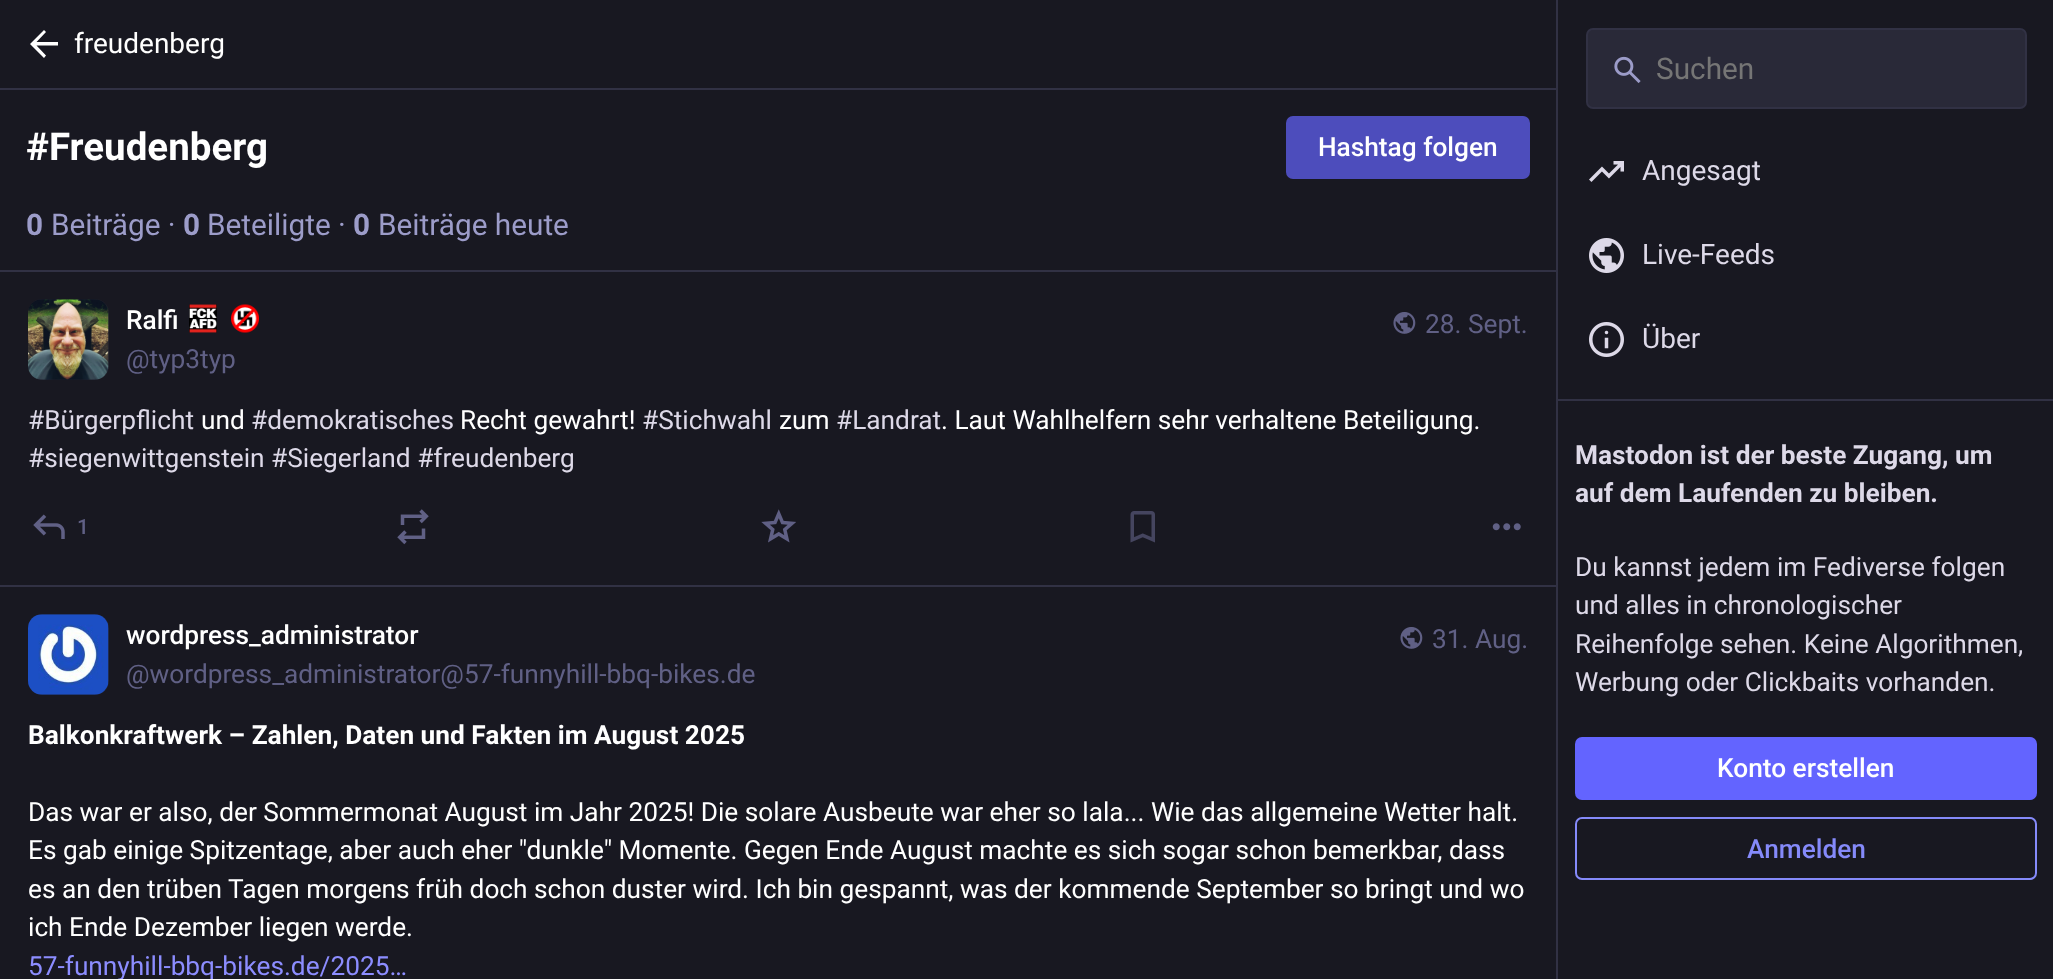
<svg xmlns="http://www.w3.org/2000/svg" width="2053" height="979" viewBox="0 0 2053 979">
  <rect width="100%" height="100%" fill="rgb(24,24,33)"/>
  <rect x="0" y="88" width="1556" height="2" fill="rgb(49,49,68)"/>
  <path d="M36.5 45.5L46 55.5L44 58L30 44L44 30L46 32L36.5 42H58V45.5Z" fill="rgb(255,255,255)"/>
  <text x="74" y="53" font-family="Roboto" font-size="28" fill="rgb(255,255,255)">freudenberg</text>
  <rect x="0" y="270" width="1556" height="2" fill="rgb(49,49,68)"/>
  <text x="26" y="160" font-family="Roboto" font-size="38.5" font-weight="bold" fill="rgb(255,255,255)">#Freudenberg</text>
  <rect x="1286" y="116" width="244" height="63" rx="7" fill="rgb(77,77,188)"/>
  <text x="1318" y="156" font-family="Roboto" font-size="26.25" font-weight="500" fill="rgb(255,255,255)">Hashtag folgen</text>
  <text x="26" y="235" font-family="Roboto" font-size="29.75" font-weight="bold" fill="rgb(156,156,201)">0</text>
  <text x="51" y="235" font-family="Roboto" font-size="29.75" fill="rgb(156,156,201)">Beiträge ·</text>
  <text x="183" y="235" font-family="Roboto" font-size="29.75" font-weight="bold" fill="rgb(156,156,201)">0</text>
  <text x="207" y="235" font-family="Roboto" font-size="29.75" fill="rgb(156,156,201)">Beteiligte ·</text>
  <text x="353" y="235" font-family="Roboto" font-size="29.75" font-weight="bold" fill="rgb(156,156,201)">0</text>
  <text x="378" y="235" font-family="Roboto" font-size="29.75" fill="rgb(156,156,201)">Beiträge heute</text>
  <rect x="0" y="585" width="1556" height="2" fill="rgb(49,49,68)"/>
  <rect x="28" y="299" width="81" height="81" rx="14" fill="rgb(32,32,44)"/>
  <image x="28" y="299" width="81" height="81" href="pic1.png"/>
  <text x="126" y="329" font-family="Roboto" font-size="26.25" font-weight="500" fill="rgb(255,255,255)">Ralfi</text>
  <image x="189" y="304" width="28" height="29" href="pic2.png"/>
  <image x="231" y="304" width="28" height="29" href="pic3.png"/>
  <text x="126" y="368" font-family="Roboto" font-size="26.25" fill="rgb(96,96,133)">@typ3typ</text>
  <image x="1393" y="312" width="23" height="22" href="pic4.png"/>
  <text x="1425" y="333" font-family="Roboto" font-size="26.25" fill="rgb(96,96,133)">28. Sept.</text>
  <text x="28" y="429" font-family="Roboto" font-size="26.25" fill="rgb(221,217,232)">#Bürgerpflicht</text>
  <text x="201" y="429" font-family="Roboto" font-size="26.25" fill="rgb(255,255,255)">und</text>
  <text x="251" y="429" font-family="Roboto" font-size="26.25" fill="rgb(221,217,232)">#demokratisches</text>
  <text x="460" y="429" font-family="Roboto" font-size="26.25" fill="rgb(255,255,255)">Recht gewahrt!</text>
  <text x="642" y="429" font-family="Roboto" font-size="26.25" fill="rgb(221,217,232)">#Stichwahl</text>
  <text x="779" y="429" font-family="Roboto" font-size="26.25" fill="rgb(255,255,255)">zum</text>
  <text x="836" y="429" font-family="Roboto" font-size="26.25" fill="rgb(221,217,232)">#Landrat</text>
  <text x="941" y="429" font-family="Roboto" font-size="26.25" fill="rgb(255,255,255)">. Laut Wahlhelfern sehr verhaltene Beteiligung.</text>
  <text x="28" y="467" font-family="Roboto" font-size="26.25" fill="rgb(221,217,232)">#siegenwittgenstein #Siegerland #freudenberg</text>
  <image x="33" y="514" width="32" height="25" href="pic5.png"/>
  <text x="77" y="534" font-family="Roboto" font-size="21" font-weight="500" fill="rgb(96,96,133)">1</text>
  <image x="397" y="509" width="32" height="36" href="pic6.png"/>
  <image x="761" y="509" width="35" height="34" href="pic7.png"/>
  <image x="1130" y="511" width="25" height="32" href="pic8.png"/>
  <image x="1492" y="523" width="29" height="8" href="pic9.png"/>
  <rect x="28" y="614" width="81" height="81" rx="14" fill="rgb(32,32,44)"/>
  <image x="28" y="614" width="81" height="81" href="pic10.png"/>
  <text x="126" y="644" font-family="Roboto" font-size="26.25" font-weight="500" fill="rgb(255,255,255)">wordpress_administrator</text>
  <text x="126" y="683" font-family="Roboto" font-size="26.25" fill="rgb(96,96,133)">@wordpress_administrator@57-funnyhill-bbq-bikes.de</text>
  <image x="1400" y="627" width="23" height="22" href="pic4.png"/>
  <text x="1432" y="648" font-family="Roboto" font-size="26.25" fill="rgb(96,96,133)">31. Aug.</text>
  <text x="28" y="744" font-family="Roboto" font-size="26.25" font-weight="bold" fill="rgb(255,255,255)">Balkonkraftwerk – Zahlen, Daten und Fakten im August 2025</text>
  <g font-family="Roboto" font-size="26.25" fill="rgb(255,255,255)">
    <text>
      <tspan x="28" y="821">Das war er also, der Sommermonat August im Jahr 2025! Die solare Ausbeute war eher so lala... Wie das allgemeine Wetter halt.</tspan>
      <tspan x="28" y="859">Es gab einige Spitzentage, aber auch eher "dunkle" Momente. Gegen Ende August machte es sich sogar schon bemerkbar, dass</tspan>
      <tspan x="28" y="898">es an den trüben Tagen morgens früh doch schon duster wird. Ich bin gespannt, was der kommende September so bringt und wo</tspan>
      <tspan x="28" y="936">ich Ende Dezember liegen werde.</tspan>
    </text>
  </g>
  <text x="28" y="975" font-family="Roboto" font-size="26.25" fill="rgb(140,141,255)">57-funnyhill-bbq-bikes.de/2025…</text>
  <rect x="1556" y="0" width="2" height="979" fill="rgb(49,49,68)"/>
  <rect x="1587" y="29" width="439" height="79" rx="6" fill="rgb(41,41,56)" stroke="rgb(49,49,68)" stroke-width="2"/>
  <image x="1614" y="56" width="27" height="27" href="pic11.png"/>
  <text x="1656" y="79" font-family="Roboto" font-size="29.75" fill="rgb(117,117,117)">Suchen</text>
  <image x="1589" y="161" width="35" height="21" href="pic12.png"/>
  <text x="1642" y="180" font-family="Roboto" font-size="28" fill="rgb(221,217,232)">Angesagt</text>
  <image x="1589" y="238" width="35" height="35" href="pic13.png"/>
  <text x="1642" y="264" font-family="Roboto" font-size="28" fill="rgb(221,217,232)">Live-Feeds</text>
  <image x="1589" y="322" width="35" height="35" href="pic14.png"/>
  <text x="1642" y="348" font-family="Roboto" font-size="28" fill="rgb(221,217,232)">Über</text>
  <rect x="1558" y="399" width="495" height="2" fill="rgb(49,49,68)"/>
  <g font-family="Roboto" font-size="26.25" font-weight="bold" fill="rgb(221,217,232)">
    <text>
      <tspan x="1575" y="464">Mastodon ist der beste Zugang, um</tspan>
      <tspan x="1575" y="502">auf dem Laufenden zu bleiben.</tspan>
    </text>
  </g>
  <g font-family="Roboto" font-size="26.25" fill="rgb(221,217,232)">
    <text>
      <tspan x="1575" y="576">Du kannst jedem im Fediverse folgen</tspan>
      <tspan x="1575" y="614">und alles in chronologischer</tspan>
      <tspan x="1575" y="653">Reihenfolge sehen. Keine Algorithmen,</tspan>
      <tspan x="1575" y="691">Werbung oder Clickbaits vorhanden.</tspan>
    </text>
  </g>
  <rect x="1575" y="737" width="462" height="63" rx="7" fill="rgb(99,100,255)"/>
  <text x="1717" y="777" font-family="Roboto" font-size="26.25" font-weight="500" fill="rgb(255,255,255)">Konto erstellen</text>
  <rect x="1576" y="818" width="460" height="61" rx="6" fill="none" stroke="rgb(133,138,250)" stroke-width="2"/>
  <text x="1747" y="858" font-family="Roboto" font-size="26.25" font-weight="500" fill="rgb(133,138,250)">Anmelden</text>
</svg>
